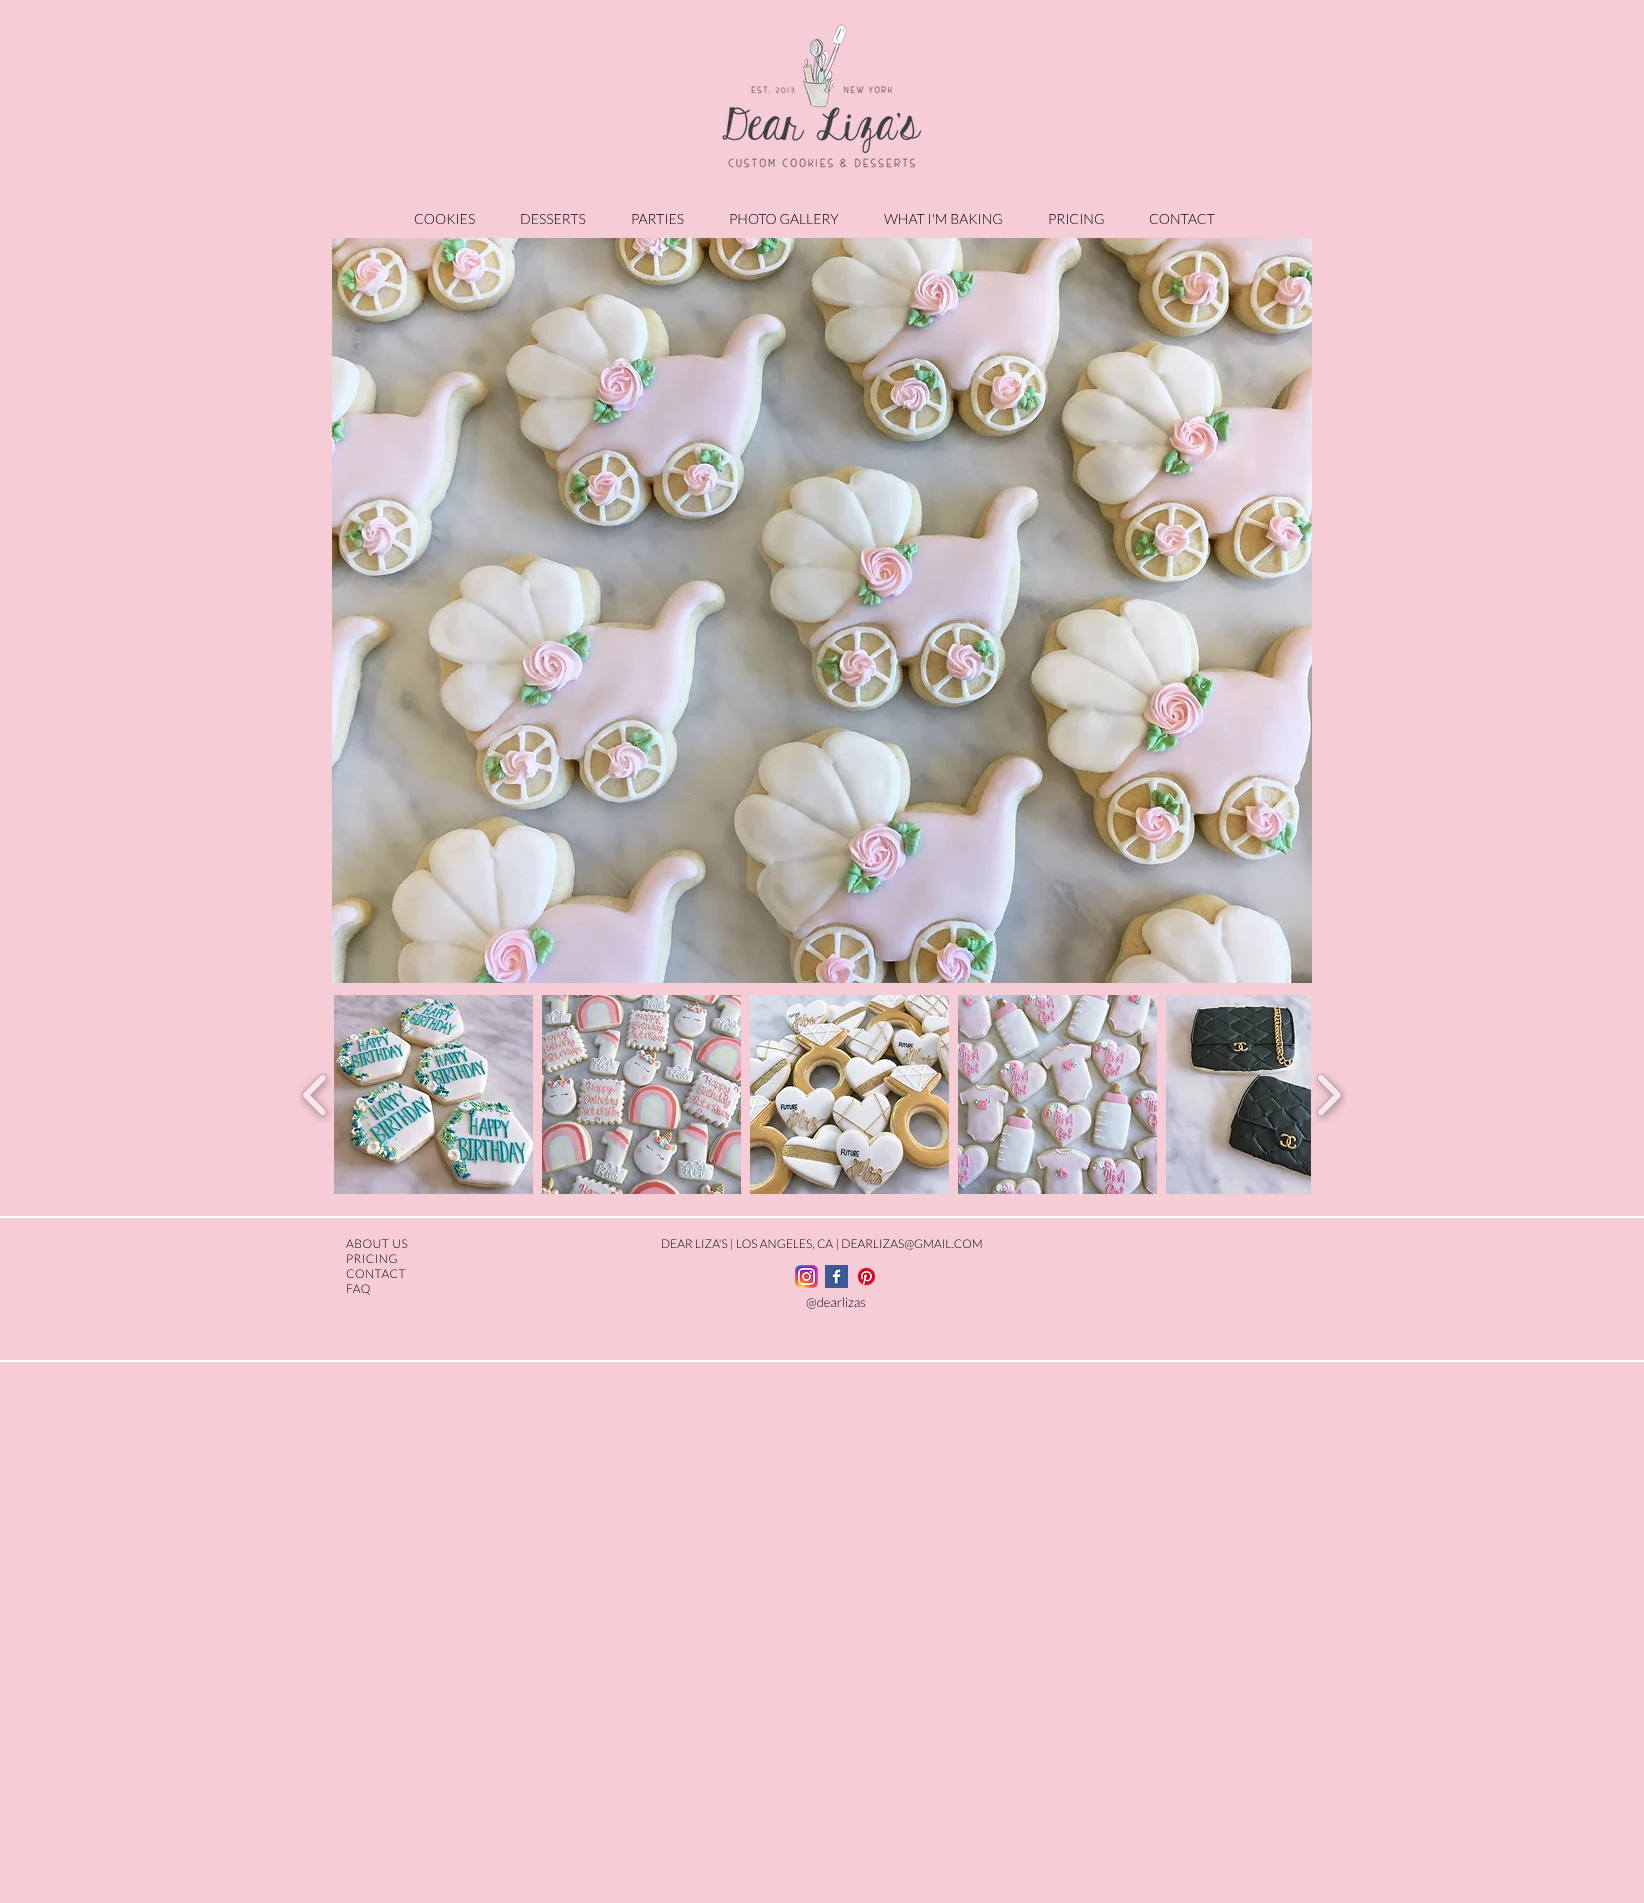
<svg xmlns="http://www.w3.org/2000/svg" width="1644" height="1903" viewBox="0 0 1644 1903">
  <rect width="100%" height="100%" fill="rgb(246,204,214)"/>
  <image x="722" y="24" width="200" height="144" href="pic1.png"/>
  <g font-family="Lato" font-size="14" font-weight="300" fill="rgb(0,0,0)">
    <text x="414" y="224">COOKIES</text>
    <text x="520" y="224">DESSERTS</text>
    <text x="631" y="224">PARTIES</text>
    <text x="729" y="224">PHOTO GALLERY</text>
    <text x="884" y="224">WHAT I'M BAKING</text>
    <text x="1048" y="224">PRICING</text>
    <text x="1149" y="224">CONTACT</text>
  </g>
  <image x="332" y="238" width="980" height="745" href="pic2.png"/>
  <image x="299" y="1072" width="33" height="50" href="pic3.png"/>
  <image x="334" y="995" width="199" height="199" href="pic4.png"/>
  <image x="542" y="995" width="199" height="199" href="pic5.png"/>
  <image x="750" y="995" width="199" height="199" href="pic6.png"/>
  <image x="958" y="995" width="199" height="199" href="pic7.png"/>
  <image x="1166" y="995" width="145" height="199" href="pic8.png"/>
  <image x="1314" y="1072" width="33" height="50" href="pic9.png"/>
  <rect x="0" y="1216" width="1644" height="2" fill="rgb(255,255,255)"/>
  <rect x="0" y="1360" width="1644" height="2" fill="rgb(255,255,255)"/>
  <g font-family="Lato" font-size="12" font-weight="300" letter-spacing="0.5" fill="rgb(0,0,0)">
    <text>
      <tspan x="346" y="1248">ABOUT US</tspan>
      <tspan x="346" y="1263">PRICING</tspan>
      <tspan x="346" y="1278">CONTACT</tspan>
      <tspan x="346" y="1293">FAQ</tspan>
    </text>
  </g>
  <text x="661" y="1248" font-family="Lato" font-size="12" font-weight="300" fill="rgb(0,0,0)">DEAR LIZA'S | LOS ANGELES, CA | DEARLIZAS@GMAIL.COM</text>
  <image x="795" y="1265" width="23" height="23" href="pic10.png"/>
  <image x="825" y="1265" width="23" height="23" href="pic11.png"/>
  <image x="857" y="1267" width="19" height="19" href="pic12.png"/>
  <text x="806" y="1307" font-family="Lato" font-size="13" font-weight="300" fill="rgb(0,0,0)">@dearlizas</text>
</svg>
